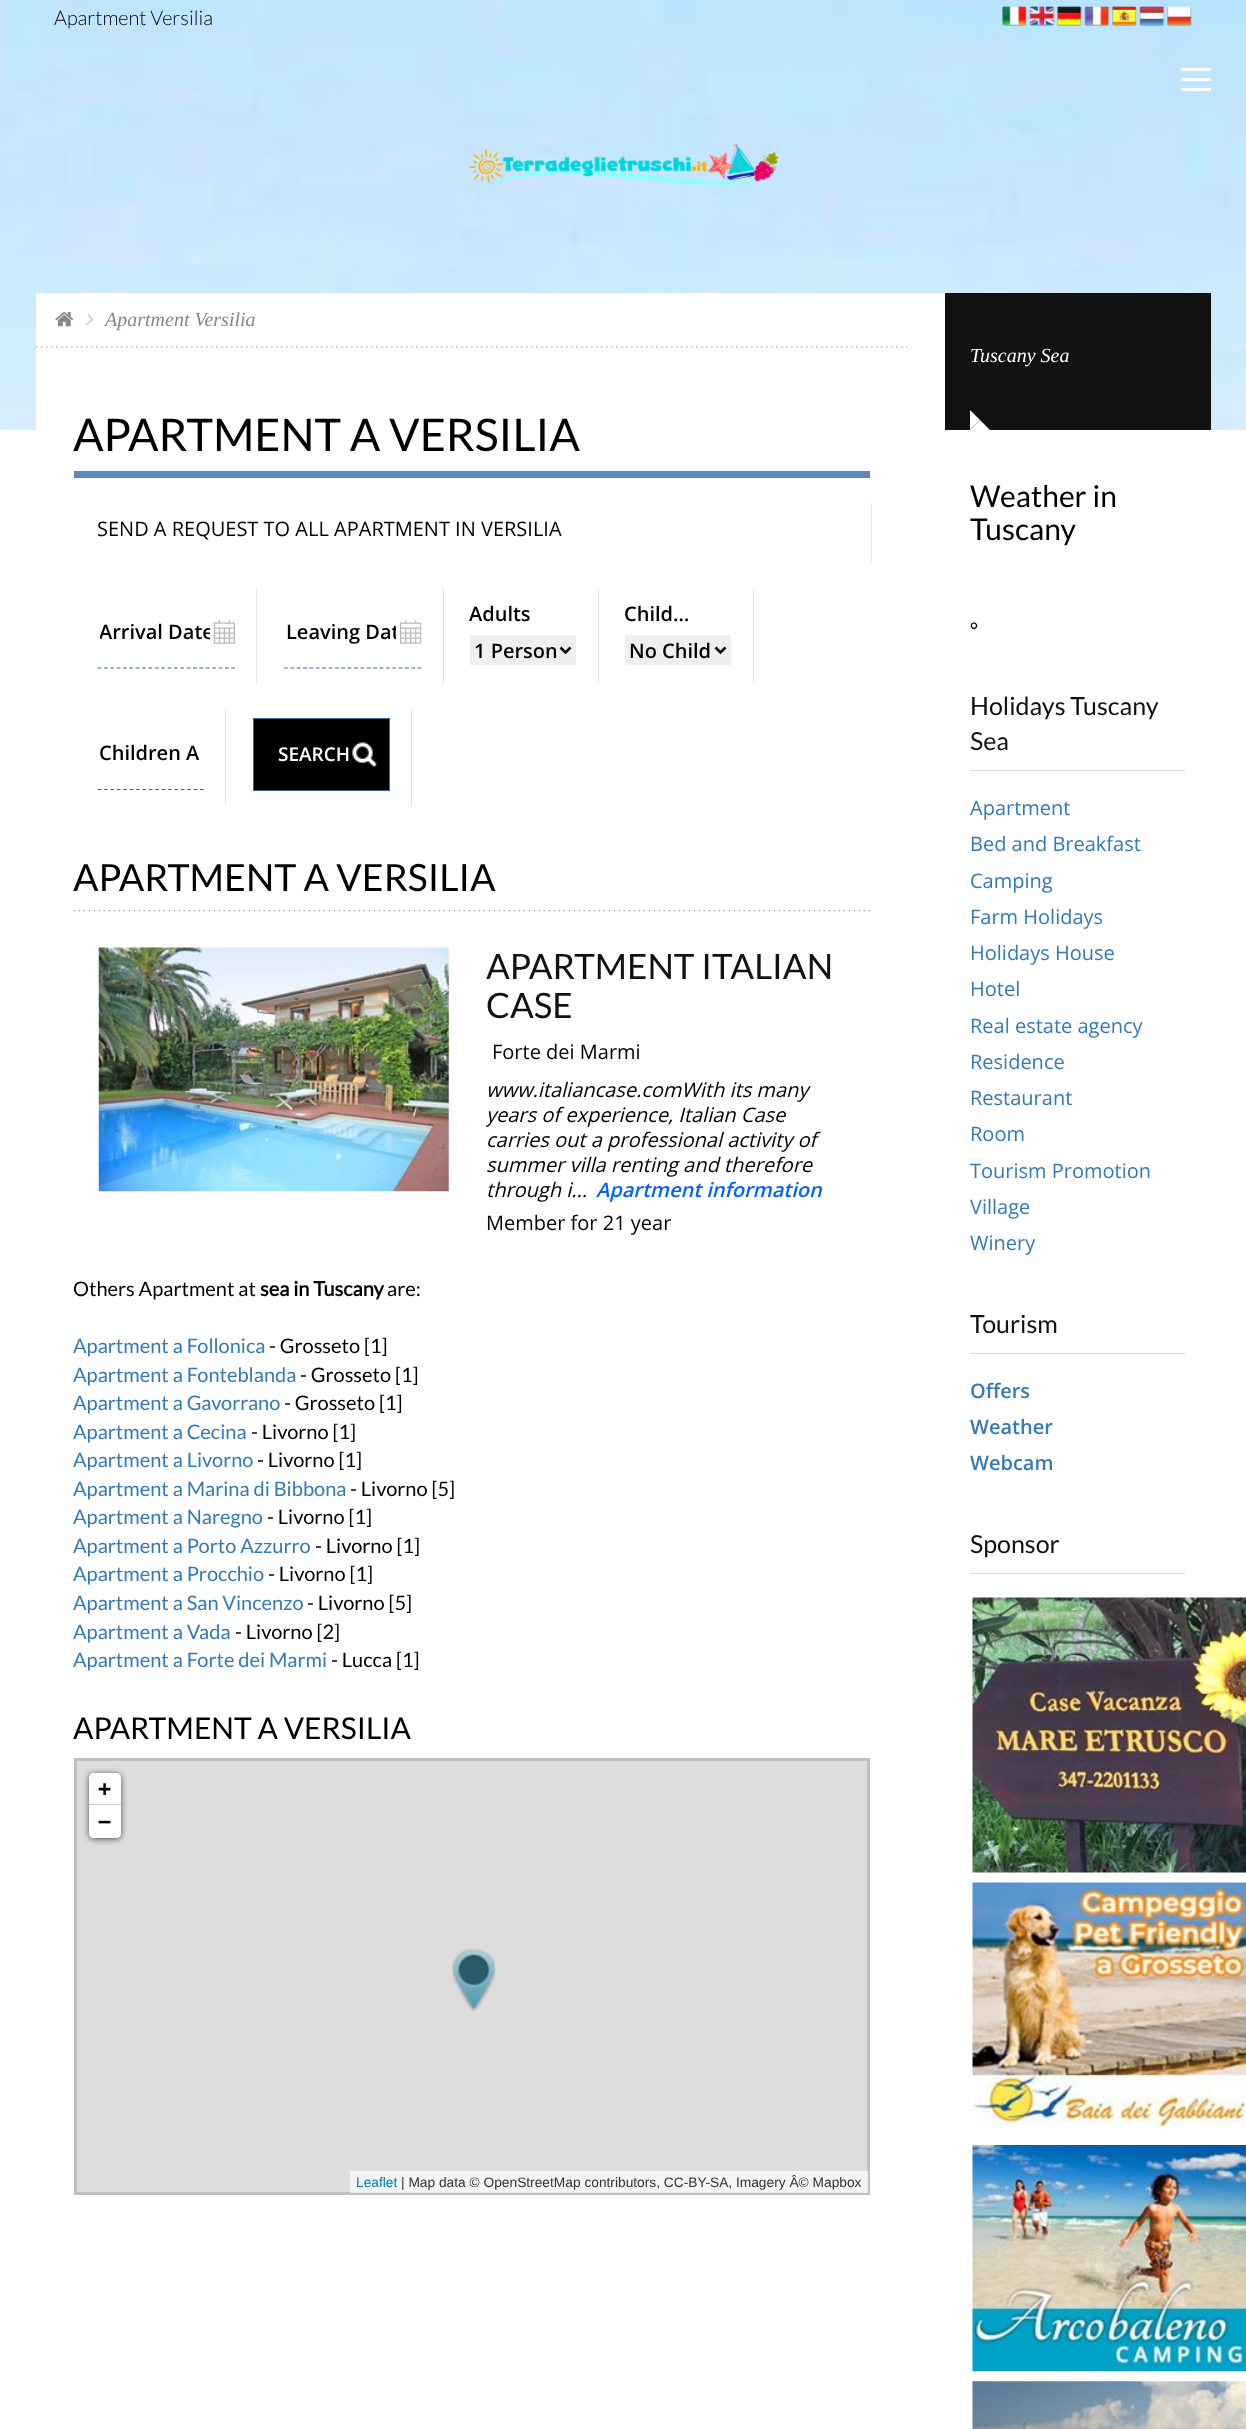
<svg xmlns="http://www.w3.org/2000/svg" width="1246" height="2429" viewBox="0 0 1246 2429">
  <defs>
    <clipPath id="clip1"><rect x="100" y="618" width="110" height="27"/></clipPath>
    <clipPath id="clip2"><rect x="286" y="618" width="110" height="27"/></clipPath>
    <clipPath id="clip3"><rect x="475" y="635" width="81" height="30"/></clipPath>
    <clipPath id="clip4"><rect x="486" y="948" width="359" height="290"/></clipPath>
  </defs>
  <rect width="100%" height="100%" fill="rgb(255,255,255)"/>
  <image x="0" y="0" width="1246" height="430" href="pic1.png"/>
  <image x="469" y="143" width="310" height="43" href="pic2.png"/>
  <text x="54" y="25" font-family="Lato" font-size="20" font-weight="300" fill="rgb(0,0,0)">Apartment Versilia</text>
  <image x="1002" y="5" width="25" height="21" href="pic3.png"/>
  <image x="1029" y="5" width="26" height="21" href="pic4.png"/>
  <image x="1057" y="5" width="25" height="21" href="pic5.png"/>
  <image x="1084" y="6" width="26" height="20" href="pic6.png"/>
  <image x="1112" y="5" width="25" height="21" href="pic7.png"/>
  <image x="1139" y="5" width="26" height="21" href="pic8.png"/>
  <image x="1167" y="6" width="25" height="20" href="pic9.png"/>
  <rect x="1181" y="68" width="30" height="3" fill="rgb(255,255,255)"/>
  <rect x="1181" y="88" width="30" height="3" fill="rgb(255,255,255)"/>
  <rect x="1181" y="78" width="30" height="3" fill="rgb(255,255,255)"/>
  <rect x="36" y="293" width="1175" height="137" fill="rgb(255,255,255)"/>
  <image x="36" y="346" width="872" height="2" href="pic10.png"/>
  <image x="55" y="311" width="19" height="16" href="pic11.png"/>
  <image x="85" y="314" width="9" height="12" href="pic12.png"/>
  <text x="105" y="326" font-family="Liberation Serif" font-size="20" font-style="italic" fill="rgb(136,136,136)">Apartment Versilia</text>
  <text x="73" y="451" font-family="Lato" font-size="45" fill="rgb(0,0,0)">APARTMENT A VERSILIA</text>
  <rect x="74" y="471" width="796" height="7" fill="rgb(88,136,196)"/>
  <rect x="871" y="503" width="1" height="60" fill="rgb(230,230,230)"/>
  <text x="97" y="536" font-family="Open Sans" font-size="20" fill="rgb(0,0,0)">SEND A REQUEST TO ALL APARTMENT IN VERSILIA</text>
  <rect x="256" y="588" width="1" height="96" fill="rgb(230,230,230)"/>
  <image x="213" y="620" width="22" height="24" href="pic13.png"/>
  <path d="M97.5 668H235" fill="none" stroke="rgb(51,102,153)" stroke-width="1.2" stroke-dasharray="3.75 2.62"/>
  <g clip-path="url(#clip1)">
    <text x="99" y="639" font-family="Open Sans" font-size="20" font-weight="600" fill="rgb(0,0,0)">Arrival Date</text>
  </g>
  <rect x="443" y="588" width="1" height="96" fill="rgb(230,230,230)"/>
  <image x="400" y="620" width="22" height="24" href="pic14.png"/>
  <path d="M284 668H421" fill="none" stroke="rgb(51,102,153)" stroke-width="1.2" stroke-dasharray="3.75 2.62"/>
  <g clip-path="url(#clip2)">
    <text x="286" y="639" font-family="Open Sans" font-size="20" font-weight="600" fill="rgb(0,0,0)">Leaving Dat</text>
  </g>
  <rect x="598" y="588" width="1" height="96" fill="rgb(230,230,230)"/>
  <text x="469" y="621" font-family="Open Sans" font-size="20" font-weight="600" fill="rgb(0,0,0)">Adults</text>
  <rect x="470" y="635" width="106" height="30" fill="rgb(239,239,239)"/>
  <path d="M560.5 647.5L565.5 652.5L570.5 647.5" fill="none" stroke="rgb(0,0,0)" stroke-width="2.5"/>
  <g clip-path="url(#clip3)">
    <text x="474" y="658" font-family="Open Sans" font-size="20" font-weight="600" fill="rgb(0,0,0)">1 Person</text>
  </g>
  <rect x="753" y="588" width="1" height="96" fill="rgb(230,230,230)"/>
  <text x="624" y="621" font-family="Open Sans" font-size="20" font-weight="600" fill="rgb(0,0,0)">Child…</text>
  <rect x="625" y="635" width="106" height="30" fill="rgb(239,239,239)"/>
  <path d="M715.5 647.5L720.5 652.5L725.5 647.5" fill="none" stroke="rgb(0,0,0)" stroke-width="2.5"/>
  <text x="629" y="658" font-family="Open Sans" font-size="20" font-weight="600" fill="rgb(0,0,0)">No Child</text>
  <rect x="225" y="709" width="1" height="96" fill="rgb(230,230,230)"/>
  <path d="M97.5 789.5H204" fill="none" stroke="rgb(51,102,153)" stroke-width="1.2" stroke-dasharray="3.75 2.65"/>
  <text x="99" y="760" font-family="Open Sans" font-size="20" font-weight="600" fill="rgb(0,0,0)">Children A</text>
  <rect x="411" y="709" width="1" height="97" fill="rgb(230,230,230)"/>
  <rect x="254" y="719" width="135" height="71" fill="rgb(0,0,0)"/>
  <image x="352" y="742" width="25" height="25" href="pic15.png"/>
  <rect x="253.5" y="718.5" width="136" height="72" fill="none" stroke="rgb(51,102,153)"/>
  <text x="278" y="761" font-family="Open Sans" font-size="19" font-weight="600" fill="rgb(255,255,255)">SEARCH</text>
  <text x="73" y="891" font-family="Lato" font-size="37.5" fill="rgb(0,0,0)">APARTMENT A VERSILIA</text>
  <image x="74" y="910" width="796" height="2" href="pic16.png"/>
  <image x="98" y="947" width="351" height="245" href="pic17.png"/>
  <g font-family="Lato" font-size="35" fill="rgb(17,17,17)">
    <text>
      <tspan x="486" y="979">APARTMENT ITALIAN</tspan>
      <tspan x="486" y="1018">CASE</tspan>
    </text>
  </g>
  <text x="492" y="1059" font-family="Open Sans" font-size="20" fill="rgb(0,0,0)">Forte dei Marmi</text>
  <text x="486" y="1097" font-family="Open Sans" font-size="20" font-style="italic" fill="rgb(0,0,0)">www.italiancase.comWith its many</text>
  <g clip-path="url(#clip4)">
    <text x="486" y="1122" font-family="Open Sans" font-size="20" font-style="italic" fill="rgb(0,0,0)">years of experience, Italian Case</text>
  </g>
  <g font-family="Open Sans" font-size="20" font-style="italic" fill="rgb(0,0,0)">
    <text>
      <tspan x="486" y="1147">carries out a professional activity of</tspan>
      <tspan x="486" y="1172">summer villa renting and therefore</tspan>
      <tspan x="486" y="1197">through i...</tspan>
    </text>
  </g>
  <text x="596" y="1197" font-family="Open Sans" font-size="20" font-weight="600" font-style="italic" fill="rgb(0,98,255)">Apartment information</text>
  <text x="486" y="1230" font-family="Open Sans" font-size="20" fill="rgb(0,0,0)">Member for 21 year</text>
  <text x="73" y="1296" font-family="Lato" font-size="20" fill="rgb(0,0,0)">Others Apartment at</text>
  <text x="260" y="1296" font-family="Lato" font-size="20" font-weight="bold" fill="rgb(0,0,0)">sea in Tuscany</text>
  <text x="387" y="1296" font-family="Lato" font-size="20" fill="rgb(0,0,0)">are:</text>
  <text x="73" y="1353" font-family="Lato" font-size="20" fill="rgb(51,122,183)">Apartment a Follonica</text>
  <text x="269" y="1353" font-family="Lato" font-size="20" fill="rgb(0,0,0)">- Grosseto [1]</text>
  <text x="73" y="1382" font-family="Lato" font-size="20" fill="rgb(51,122,183)">Apartment a Fonteblanda</text>
  <text x="300" y="1382" font-family="Lato" font-size="20" fill="rgb(0,0,0)">- Grosseto [1]</text>
  <text x="73" y="1410" font-family="Lato" font-size="20" fill="rgb(51,122,183)">Apartment a Gavorrano</text>
  <text x="284" y="1410" font-family="Lato" font-size="20" fill="rgb(0,0,0)">- Grosseto [1]</text>
  <text x="73" y="1439" font-family="Lato" font-size="20" fill="rgb(51,122,183)">Apartment a Cecina</text>
  <text x="251" y="1439" font-family="Lato" font-size="20" fill="rgb(0,0,0)">- Livorno [1]</text>
  <text x="73" y="1467" font-family="Lato" font-size="20" fill="rgb(51,122,183)">Apartment a Livorno</text>
  <text x="257" y="1467" font-family="Lato" font-size="20" fill="rgb(0,0,0)">- Livorno [1]</text>
  <text x="73" y="1496" font-family="Lato" font-size="20" fill="rgb(51,122,183)">Apartment a Marina di Bibbona</text>
  <text x="350" y="1496" font-family="Lato" font-size="20" fill="rgb(0,0,0)">- Livorno [5]</text>
  <text x="73" y="1524" font-family="Lato" font-size="20" fill="rgb(51,122,183)">Apartment a Naregno</text>
  <text x="267" y="1524" font-family="Lato" font-size="20" fill="rgb(0,0,0)">- Livorno [1]</text>
  <text x="73" y="1553" font-family="Lato" font-size="20" fill="rgb(51,122,183)">Apartment a Porto Azzurro</text>
  <text x="315" y="1553" font-family="Lato" font-size="20" fill="rgb(0,0,0)">- Livorno [1]</text>
  <text x="73" y="1581" font-family="Lato" font-size="20" fill="rgb(51,122,183)">Apartment a Procchio</text>
  <text x="268" y="1581" font-family="Lato" font-size="20" fill="rgb(0,0,0)">- Livorno [1]</text>
  <text x="73" y="1610" font-family="Lato" font-size="20" fill="rgb(51,122,183)">Apartment a San Vincenzo</text>
  <text x="307" y="1610" font-family="Lato" font-size="20" fill="rgb(0,0,0)">- Livorno [5]</text>
  <text x="73" y="1639" font-family="Lato" font-size="20" fill="rgb(51,122,183)">Apartment a Vada</text>
  <text x="235" y="1639" font-family="Lato" font-size="20" fill="rgb(0,0,0)">- Livorno [2]</text>
  <text x="73" y="1667" font-family="Lato" font-size="20" fill="rgb(51,122,183)">Apartment a Forte dei Marmi</text>
  <text x="331" y="1667" font-family="Lato" font-size="20" fill="rgb(0,0,0)">- Lucca [1]</text>
  <text x="73" y="1739" font-family="Lato" font-size="30" fill="rgb(0,0,0)">APARTMENT A VERSILIA</text>
  <rect x="75.5" y="1759.5" width="793" height="434" fill="rgb(221,221,221)" stroke="rgb(192,192,192)" stroke-width="3"/>
  <rect x="89" y="1774" width="32" height="65" rx="5" fill="rgba(0,0,0,0.65)" filter="blur(3px)"/>
  <path d="M94 1773H116C119 1773 121 1775 121 1778V1805H89V1778C89 1775 91 1773 94 1773Z" fill="rgb(255,255,255)"/>
  <rect x="89" y="1804" width="32" height="1" fill="rgb(204,204,204)"/>
  <text x="98" y="1796" font-family="DejaVu Sans Mono" font-size="22" font-weight="bold" fill="rgb(0,0,0)">+</text>
  <path d="M89 1805H121V1833C121 1836 119 1838 116 1838H94C91 1838 89 1836 89 1833Z" fill="rgb(255,255,255)"/>
  <text x="98" y="1829" font-family="DejaVu Sans Mono" font-size="22" font-weight="bold" fill="rgb(0,0,0)">−</text>
  <rect x="350" y="2171" width="518" height="22" fill="rgba(255,255,255,0.7)"/>
  <text x="356" y="2187" font-family="Liberation Sans" font-size="13.75" fill="rgb(0,120,168)">Leaflet</text>
  <text x="401" y="2187" font-family="Liberation Sans" font-size="13.75" fill="rgb(51,51,51)">| Map data © OpenStreetMap contributors, CC-BY-SA, Imagery Â© Mapbox</text>
  <image x="452" y="1948" width="44" height="64" href="pic18.png"/>
  <rect x="945" y="293" width="266" height="137" fill="rgb(17,17,17)"/>
  <text x="970" y="362" font-family="Liberation Serif" font-size="20" font-style="italic" fill="rgb(255,255,255)">Tuscany Sea</text>
  <path d="M990 430H970L980 420Z" fill="rgb(255,255,255)"/>
  <path d="M970 430V410L980 420Z" fill="rgb(255,255,255)"/>
  <g font-family="Lato" font-size="30" fill="rgb(0,0,0)">
    <text>
      <tspan x="970" y="507">Weather in</tspan>
      <tspan x="970" y="540">Tuscany</tspan>
    </text>
  </g>
  <text x="970" y="637" font-family="Lato" font-size="20" fill="rgb(0,0,0)">°</text>
  <rect x="970" y="770" width="216" height="1" fill="rgb(222,222,222)"/>
  <g font-family="Lato" font-size="25" fill="rgb(17,17,17)">
    <text>
      <tspan x="970" y="715">Holidays Tuscany</tspan>
      <tspan x="970" y="750">Sea</tspan>
    </text>
  </g>
  <g font-family="Open Sans" font-size="20" fill="rgb(51,122,183)">
    <text>
      <tspan x="970" y="815">Apartment</tspan>
      <tspan x="970" y="851">Bed and Breakfast</tspan>
      <tspan x="970" y="888">Camping</tspan>
      <tspan x="970" y="924">Farm Holidays</tspan>
      <tspan x="970" y="960">Holidays House</tspan>
      <tspan x="970" y="996">Hotel</tspan>
      <tspan x="970" y="1033">Real estate agency</tspan>
      <tspan x="970" y="1069">Residence</tspan>
      <tspan x="970" y="1105">Restaurant</tspan>
      <tspan x="970" y="1141">Room</tspan>
      <tspan x="970" y="1178">Tourism Promotion</tspan>
      <tspan x="970" y="1214">Village</tspan>
      <tspan x="970" y="1250">Winery</tspan>
    </text>
  </g>
  <rect x="970" y="1353" width="216" height="1" fill="rgb(222,222,222)"/>
  <text x="970" y="1333" font-family="Lato" font-size="25" fill="rgb(17,17,17)">Tourism</text>
  <g font-family="Open Sans" font-size="20" font-weight="600" fill="rgb(51,122,183)">
    <text>
      <tspan x="970" y="1398">Offers</tspan>
      <tspan x="970" y="1434">Weather</tspan>
      <tspan x="970" y="1470">Webcam</tspan>
    </text>
  </g>
  <rect x="970" y="1573" width="216" height="1" fill="rgb(222,222,222)"/>
  <text x="970" y="1553" font-family="Lato" font-size="25" fill="rgb(17,17,17)">Sponsor</text>
  <image x="972" y="1597" width="274" height="276" href="pic19.png"/>
  <image x="972" y="1882" width="274" height="248" href="pic20.png"/>
  <image x="972" y="2145" width="274" height="227" href="pic21.png"/>
  <image x="972" y="2381" width="274" height="48" href="pic22.png"/>
</svg>
